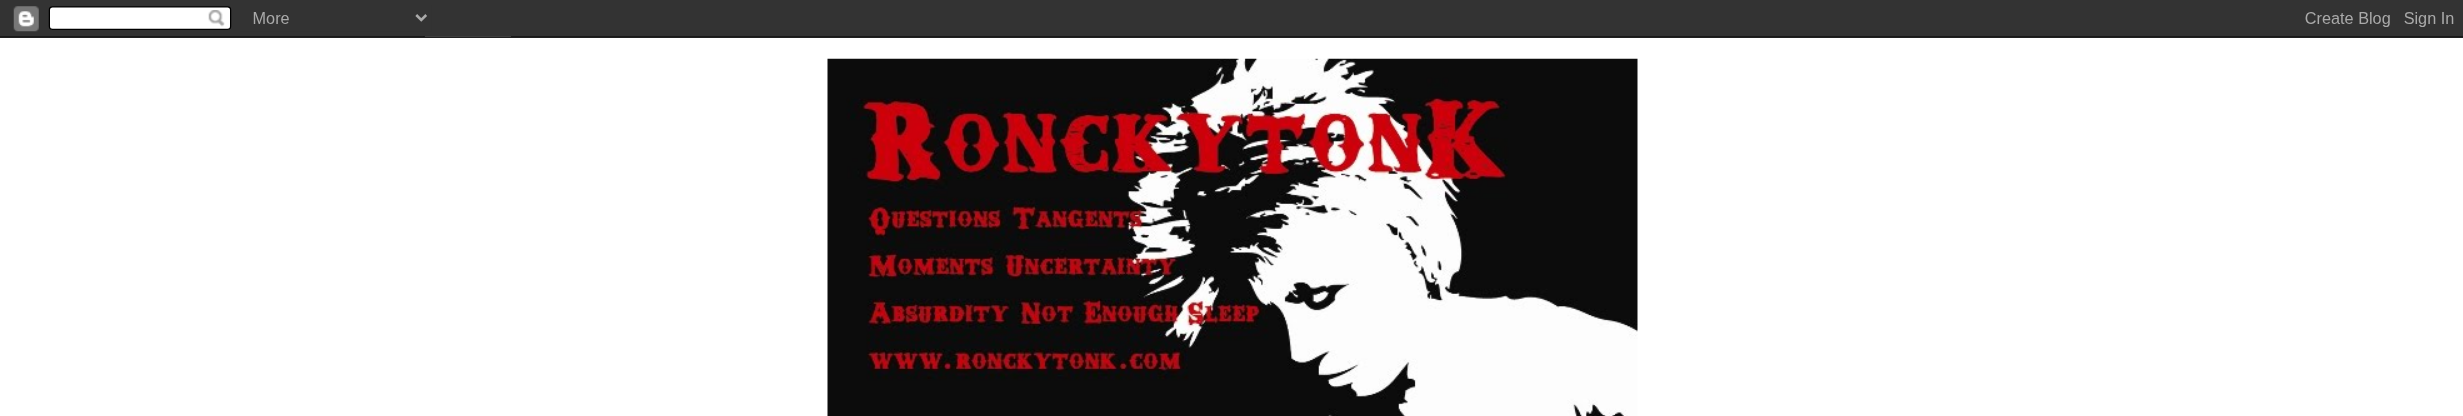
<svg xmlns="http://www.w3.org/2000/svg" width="2463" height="416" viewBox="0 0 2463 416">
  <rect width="100%" height="100%" fill="rgb(255,255,255)"/>
  <image x="0" y="0" width="2463" height="38" href="pic1.png"/>
  <image x="827" y="58" width="811" height="358" href="pic2.png"/>
</svg>
